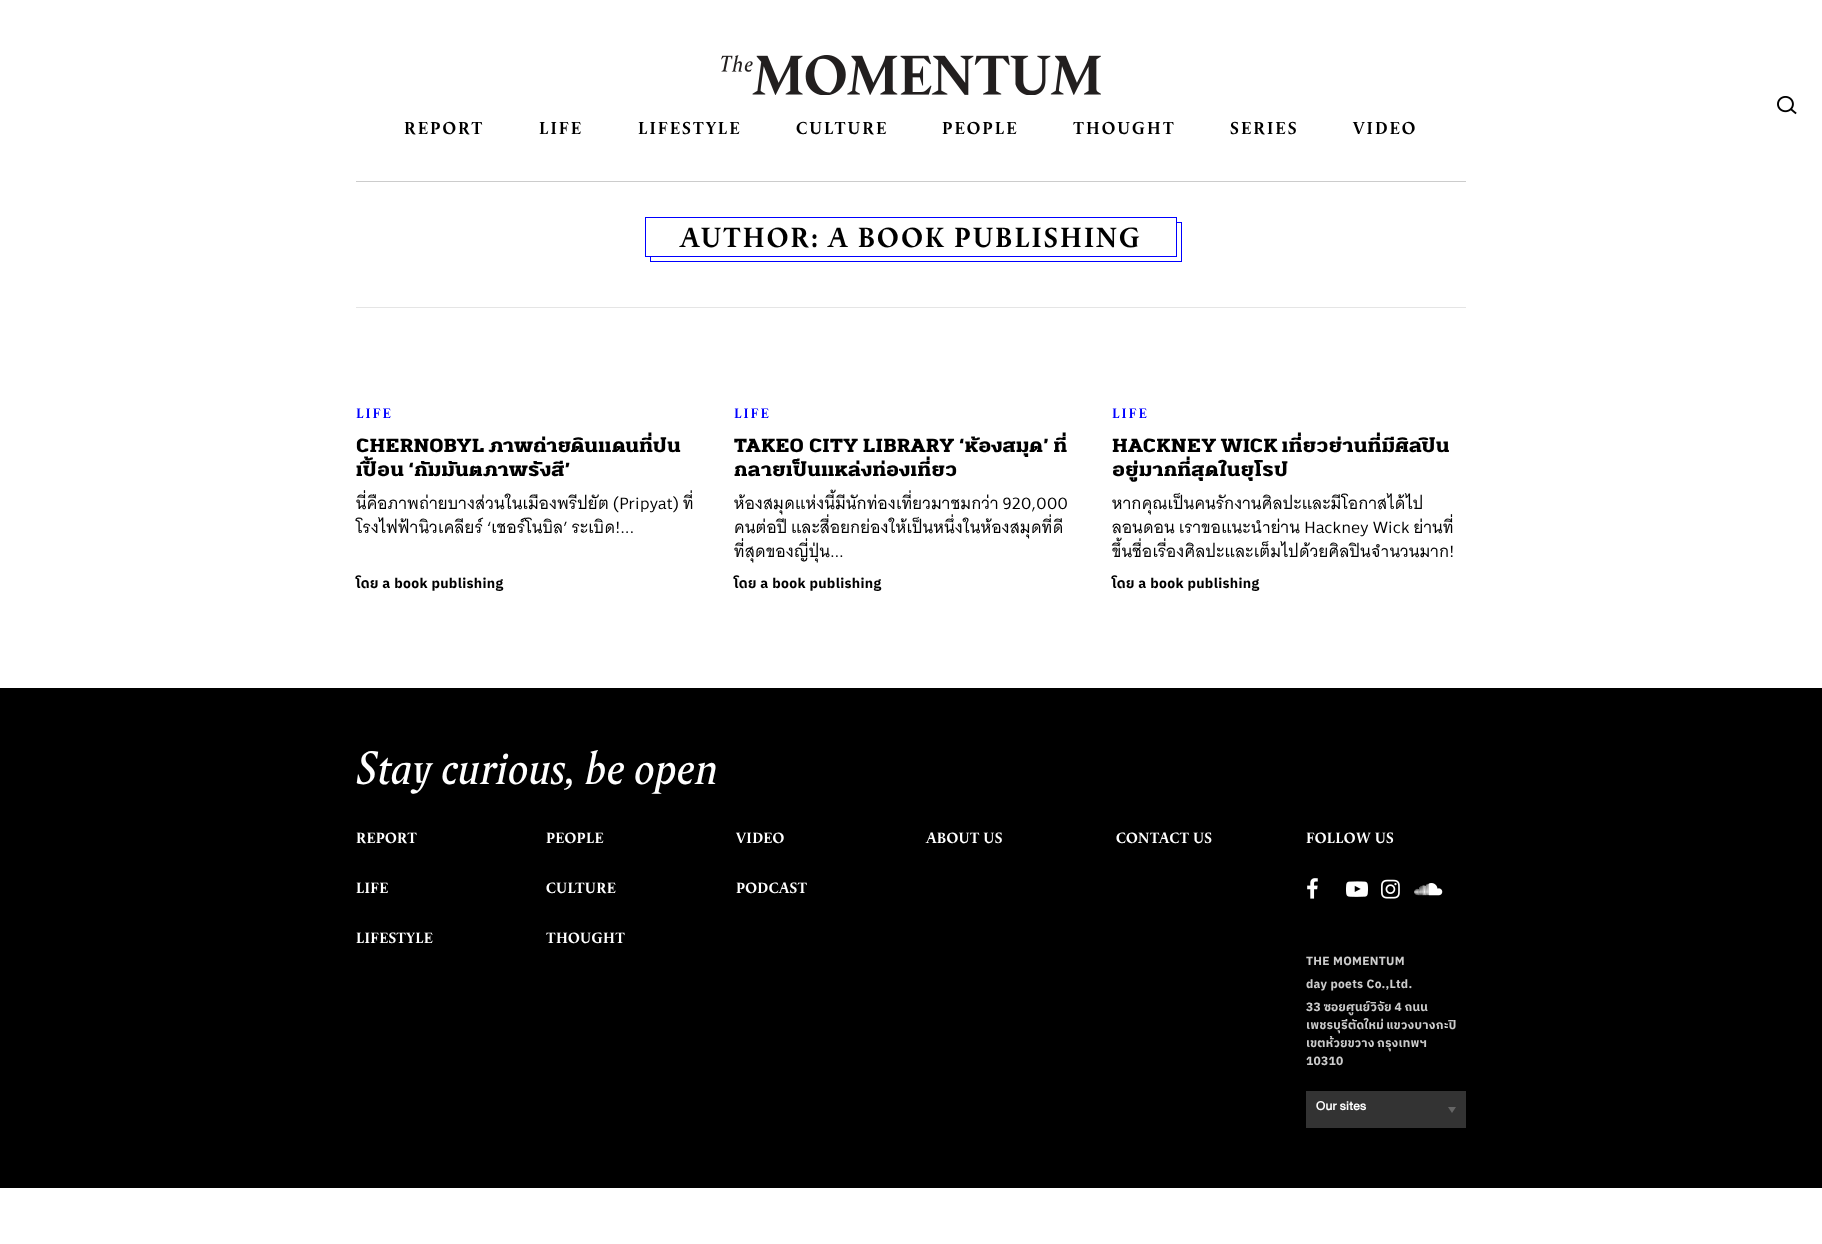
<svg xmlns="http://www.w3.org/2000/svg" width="1822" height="1244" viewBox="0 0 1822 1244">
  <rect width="100%" height="100%" fill="rgb(255,255,255)"/>
  <image x="721" y="55" width="380" height="40" href="pic1.png"/>
  <image x="1777" y="96" width="20" height="19" href="pic2.png"/>
  <rect x="356" y="181" width="1110" height="1" fill="rgb(204,204,204)"/>
  <g font-family="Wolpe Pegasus" font-size="15" font-weight="bold" letter-spacing="2" fill="rgb(0,0,0)">
    <text x="404" y="134">REPORT</text>
    <text x="539" y="134">LIFE</text>
    <text x="638" y="134">LIFESTYLE</text>
    <text x="796" y="134">CULTURE</text>
    <text x="942" y="134">PEOPLE</text>
    <text x="1073" y="134">THOUGHT</text>
    <text x="1230" y="134">SERIES</text>
    <text x="1353" y="134">VIDEO</text>
  </g>
  <rect x="356" y="307" width="1110" height="1" fill="rgb(229,229,229)"/>
  <rect x="650.5" y="222.5" width="531" height="39" fill="none" stroke="rgb(0,0,255)"/>
  <rect x="650" y="222" width="526" height="34" fill="rgb(255,255,255)"/>
  <rect x="645.5" y="217.5" width="531" height="39" fill="none" stroke="rgb(0,0,255)"/>
  <text x="680" y="247" font-family="Wolpe Pegasus" font-size="24" font-weight="bold" letter-spacing="2" fill="rgb(0,0,0)">AUTHOR: A BOOK PUBLISHING</text>
  <text x="356" y="418" font-family="Wolpe Pegasus" font-size="12" font-weight="bold" letter-spacing="2" fill="rgb(0,0,255)">LIFE</text>
  <g font-family="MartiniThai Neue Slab" font-size="18" font-weight="900" letter-spacing="0.3" fill="rgb(0,0,0)">
    <text>
      <tspan x="356" y="452" word-spacing="-1">CHERNOBYL ภาพถ่ายดินแดนที่ปน</tspan>
      <tspan x="356" y="476" word-spacing="-1">เปื้อน ‘กัมมันตภาพรังสี’</tspan>
    </text>
  </g>
  <g font-family="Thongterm" font-size="16" letter-spacing="0.3" fill="rgb(0,0,0)">
    <text>
      <tspan x="356" y="509" word-spacing="-1">นี่คือภาพถ่ายบางส่วนในเมืองพรีปยัต (Pripyat) ที่</tspan>
      <tspan x="356" y="533" word-spacing="-1">โรงไฟฟ้านิวเคลียร์ ‘เชอร์โนบิล’ ระเบิด!...</tspan>
    </text>
  </g>
  <text x="356" y="588" font-family="IBM Plex Sans Thai" font-size="14" font-weight="bold" letter-spacing="0.3" fill="rgb(0,0,0)">โดย a book publishing</text>
  <text x="734" y="418" font-family="Wolpe Pegasus" font-size="12" font-weight="bold" letter-spacing="2" fill="rgb(0,0,255)">LIFE</text>
  <g font-family="MartiniThai Neue Slab" font-size="18" font-weight="900" letter-spacing="0.3" fill="rgb(0,0,0)">
    <text>
      <tspan x="734" y="452" word-spacing="-0.5">TAKEO CITY LIBRARY ‘ห้องสมุด’ ที่</tspan>
      <tspan x="734" y="476">กลายเป็นแหล่งท่องเที่ยว</tspan>
    </text>
  </g>
  <g font-family="Thongterm" font-size="16" letter-spacing="0.3" fill="rgb(0,0,0)">
    <text>
      <tspan x="734" y="509" word-spacing="-1">ห้องสมุดแห่งนี้มีนักท่องเที่ยวมาชมกว่า 920,000</tspan>
      <tspan x="734" y="533" word-spacing="-1">คนต่อปี และสื่อยกย่องให้เป็นหนึ่งในห้องสมุดที่ดี</tspan>
      <tspan x="734" y="557">ที่สุดของญี่ปุ่น...</tspan>
    </text>
  </g>
  <text x="734" y="588" font-family="IBM Plex Sans Thai" font-size="14" font-weight="bold" letter-spacing="0.3" fill="rgb(0,0,0)">โดย a book publishing</text>
  <text x="1112" y="418" font-family="Wolpe Pegasus" font-size="12" font-weight="bold" letter-spacing="2" fill="rgb(0,0,255)">LIFE</text>
  <g font-family="MartiniThai Neue Slab" font-size="18" font-weight="900" letter-spacing="0.3" fill="rgb(0,0,0)">
    <text>
      <tspan x="1112" y="452" word-spacing="-1">HACKNEY WICK เที่ยวย่านที่มีศิลปิน</tspan>
      <tspan x="1112" y="476">อยู่มากที่สุดในยุโรป</tspan>
    </text>
  </g>
  <g font-family="Thongterm" font-size="16" letter-spacing="0.3" fill="rgb(0,0,0)">
    <text>
      <tspan x="1112" y="509">หากคุณเป็นคนรักงานศิลปะและมีโอกาสได้ไป</tspan>
      <tspan x="1112" y="533" word-spacing="-0.5">ลอนดอน เราขอแนะนำย่าน Hackney Wick ย่านที่</tspan>
      <tspan x="1112" y="557">ขึ้นชื่อเรื่องศิลปะและเต็มไปด้วยศิลปินจำนวนมาก!</tspan>
    </text>
  </g>
  <text x="1112" y="588" font-family="IBM Plex Sans Thai" font-size="14" font-weight="bold" letter-spacing="0.3" fill="rgb(0,0,0)">โดย a book publishing</text>
  <rect x="0" y="688" width="1822" height="500" fill="rgb(0,0,0)"/>
  <text x="356" y="784" font-family="Wolpe Pegasus" font-size="40" font-style="italic" letter-spacing="0.3" fill="rgb(255,255,255)">Stay curious, be open</text>
  <g font-family="Wolpe Pegasus" font-size="13" font-weight="bold" letter-spacing="0.3" fill="rgb(255,255,255)">
    <text x="356" y="843">REPORT</text>
    <text x="356" y="893">LIFE</text>
    <text x="356" y="943">LIFESTYLE</text>
    <text x="546" y="843">PEOPLE</text>
    <text x="546" y="893">CULTURE</text>
    <text x="546" y="943">THOUGHT</text>
    <text x="736" y="843">VIDEO</text>
    <text x="736" y="893">PODCAST</text>
    <text x="926" y="843">ABOUT US</text>
    <text x="1116" y="843">CONTACT US</text>
    <text x="1306" y="843">FOLLOW US</text>
  </g>
  <image x="1307" y="878" width="11" height="21" href="pic3.png"/>
  <image x="1346" y="881" width="22" height="16" href="pic4.png"/>
  <image x="1381" y="879" width="19" height="20" href="pic5.png"/>
  <image x="1414" y="883" width="29" height="13" href="pic6.png"/>
  <g font-family="IBM Plex Sans Thai" font-size="12" font-weight="bold" letter-spacing="0.3" fill="rgb(204,204,204)">
    <text>
      <tspan x="1306" y="965">THE MOMENTUM</tspan>
      <tspan x="1306" y="988">day poets Co.,Ltd.</tspan>
      <tspan x="1306" y="1011" word-spacing="-0.5">33 ซอยศูนย์วิจัย 4 ถนน</tspan>
      <tspan x="1306" y="1029" word-spacing="-1">เพชรบุรีตัดใหม่ แขวงบางกะปิ</tspan>
      <tspan x="1306" y="1047" word-spacing="-1">เขตห้วยขวาง กรุงเทพฯ</tspan>
      <tspan x="1306" y="1065">10310</tspan>
    </text>
  </g>
  <rect x="1306" y="1091" width="160" height="37" fill="rgb(51,51,51)"/>
  <text x="1316" y="1110" font-family="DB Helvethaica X" font-size="18" font-weight="500" fill="rgb(255,255,255)">Our sites</text>
  <path d="M1448 1107H1456L1452 1113Z" fill="rgb(102,102,102)"/>
</svg>
